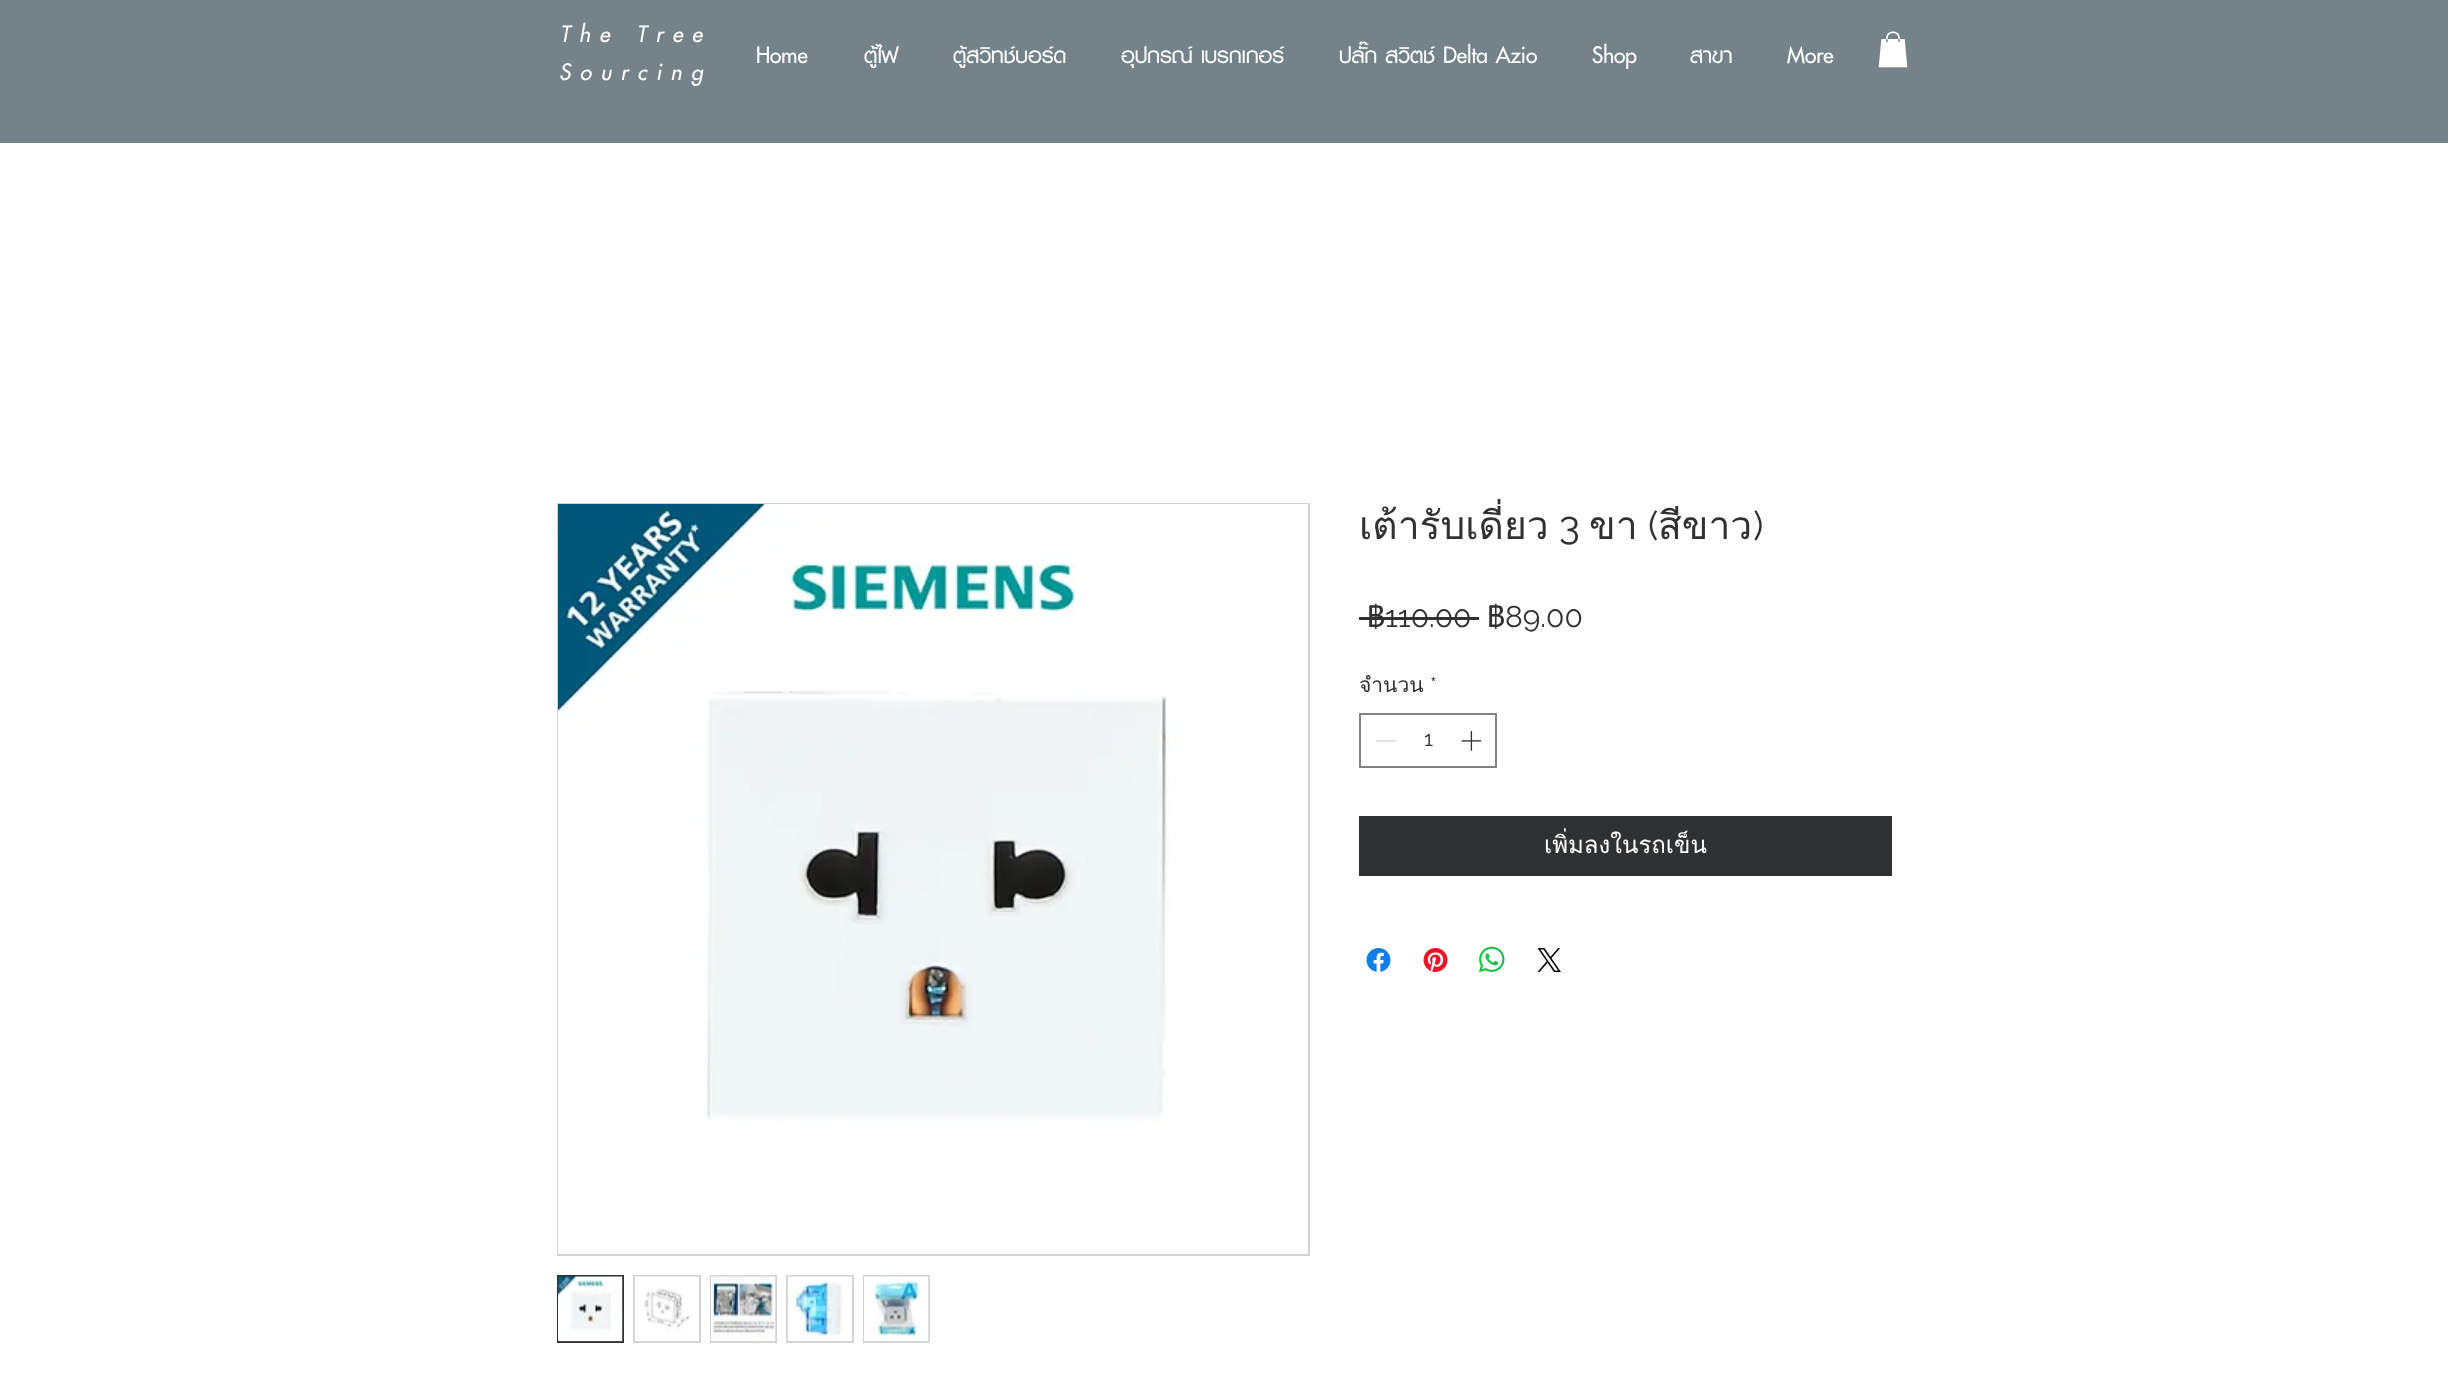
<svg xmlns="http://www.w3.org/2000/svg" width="2448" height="1390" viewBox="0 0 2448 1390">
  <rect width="100%" height="100%" fill="rgb(255,255,255)"/>
  <rect x="0" y="0" width="2448" height="143" fill="rgb(116,131,138)"/>
  <g font-family="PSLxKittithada" font-size="31.5" font-weight="bold" font-style="italic" letter-spacing="9.5" fill="rgb(255,255,255)">
    <text x="561" y="42">The Tree</text>
    <text x="560" y="80">Sourcing</text>
  </g>
  <g font-family="PSLxKittithada" font-size="31.5" font-weight="bold" fill="rgb(255,255,255)">
    <text x="756" y="63">Home</text>
    <text x="864" y="63">ตู้ไฟ</text>
    <text x="953" y="63">ตู้สวิทช์บอร์ด</text>
    <text x="1121" y="63">อุปกรณ์ เบรกเกอร์</text>
    <text x="1339" y="63">ปลั๊ก สวิตช์ Delta Azio</text>
    <text x="1592" y="63">Shop</text>
    <text x="1690" y="63">สาขา</text>
    <text x="1787" y="63">More</text>
  </g>
  <image x="1878" y="31" width="30" height="37" href="pic1.png"/>
  <rect x="558" y="504" width="751" height="751" fill="none" stroke="rgb(211,211,211)" stroke-width="2"/>
  <image x="558" y="504" width="750" height="750" href="pic2.png"/>
  <rect x="558" y="1276" width="65" height="66" fill="none" stroke="rgb(48,49,50)" stroke-width="2"/>
  <image x="558" y="1276" width="65" height="66" href="pic3.png"/>
  <rect x="634" y="1276" width="66" height="66" fill="none" stroke="rgb(211,211,211)" stroke-width="2"/>
  <image x="634" y="1276" width="65" height="66" href="pic4.png"/>
  <rect x="711" y="1276" width="65" height="66" fill="none" stroke="rgb(211,211,211)" stroke-width="2"/>
  <image x="711" y="1276" width="65" height="66" href="pic5.png"/>
  <rect x="787" y="1276" width="66" height="66" fill="none" stroke="rgb(211,211,211)" stroke-width="2"/>
  <image x="787" y="1276" width="65" height="66" href="pic6.png"/>
  <rect x="864" y="1276" width="65" height="66" fill="none" stroke="rgb(211,211,211)" stroke-width="2"/>
  <image x="864" y="1276" width="65" height="66" href="pic7.png"/>
  <text x="1359" y="539" font-family="Loma" font-size="39" fill="rgb(48,49,50)">เต้ารับเดี่ยว</text>
  <text x="1648" y="539" font-family="Raleway" font-size="39" fill="rgb(48,49,50)">(</text>
  <text x="1658" y="539" font-family="Loma" font-size="39" fill="rgb(48,49,50)">สีขาว</text>
  <text x="1559" y="539" font-family="Raleway" font-size="39" fill="rgb(48,49,50)">3</text>
  <text x="1589" y="539" font-family="Loma" font-size="39" fill="rgb(48,49,50)">ขา</text>
  <text x="1753" y="539" font-family="Raleway" font-size="39" fill="rgb(48,49,50)">)</text>
  <text x="1367" y="627" font-family="Loma" font-size="30" fill="rgb(48,49,50)">฿</text>
  <text x="1385" y="627" font-family="Raleway" font-size="30" fill="rgb(48,49,50)">110.00</text>
  <rect x="1359" y="617" width="120" height="3" fill="rgb(48,49,50)"/>
  <text x="1487" y="627" font-family="Loma" font-size="30" fill="rgb(48,49,50)">฿</text>
  <text x="1505" y="627" font-family="Raleway" font-size="30" fill="rgb(48,49,50)">89.00</text>
  <text x="1359" y="692" font-family="Loma" font-size="21" fill="rgb(48,49,50)">จำนวน</text>
  <text x="1430" y="692" font-family="Raleway" font-size="21" fill="rgb(48,49,50)">*</text>
  <rect x="1360" y="714" width="136" height="53" fill="none" stroke="rgb(131,131,132)" stroke-width="2"/>
  <rect x="1376" y="740" width="20" height="2" fill="rgb(227,227,227)"/>
  <text x="1424" y="746" font-family="Raleway" font-size="21" fill="rgb(48,49,50)">1</text>
  <image x="1461" y="731" width="21" height="20" href="pic8.png"/>
  <rect x="1359" y="816" width="533" height="60" fill="rgb(48,49,50)"/>
  <text x="1544" y="853" font-family="Loma" font-size="24" fill="rgb(255,255,255)">เพิ่มลงในรถเข็น</text>
  <image x="1366" y="948" width="25" height="24" href="pic9.png"/>
  <image x="1423" y="948" width="25" height="24" href="pic10.png"/>
  <image x="1479" y="946" width="26" height="27" href="pic11.png"/>
  <image x="1537" y="948" width="24" height="24" href="pic12.png"/>
</svg>
